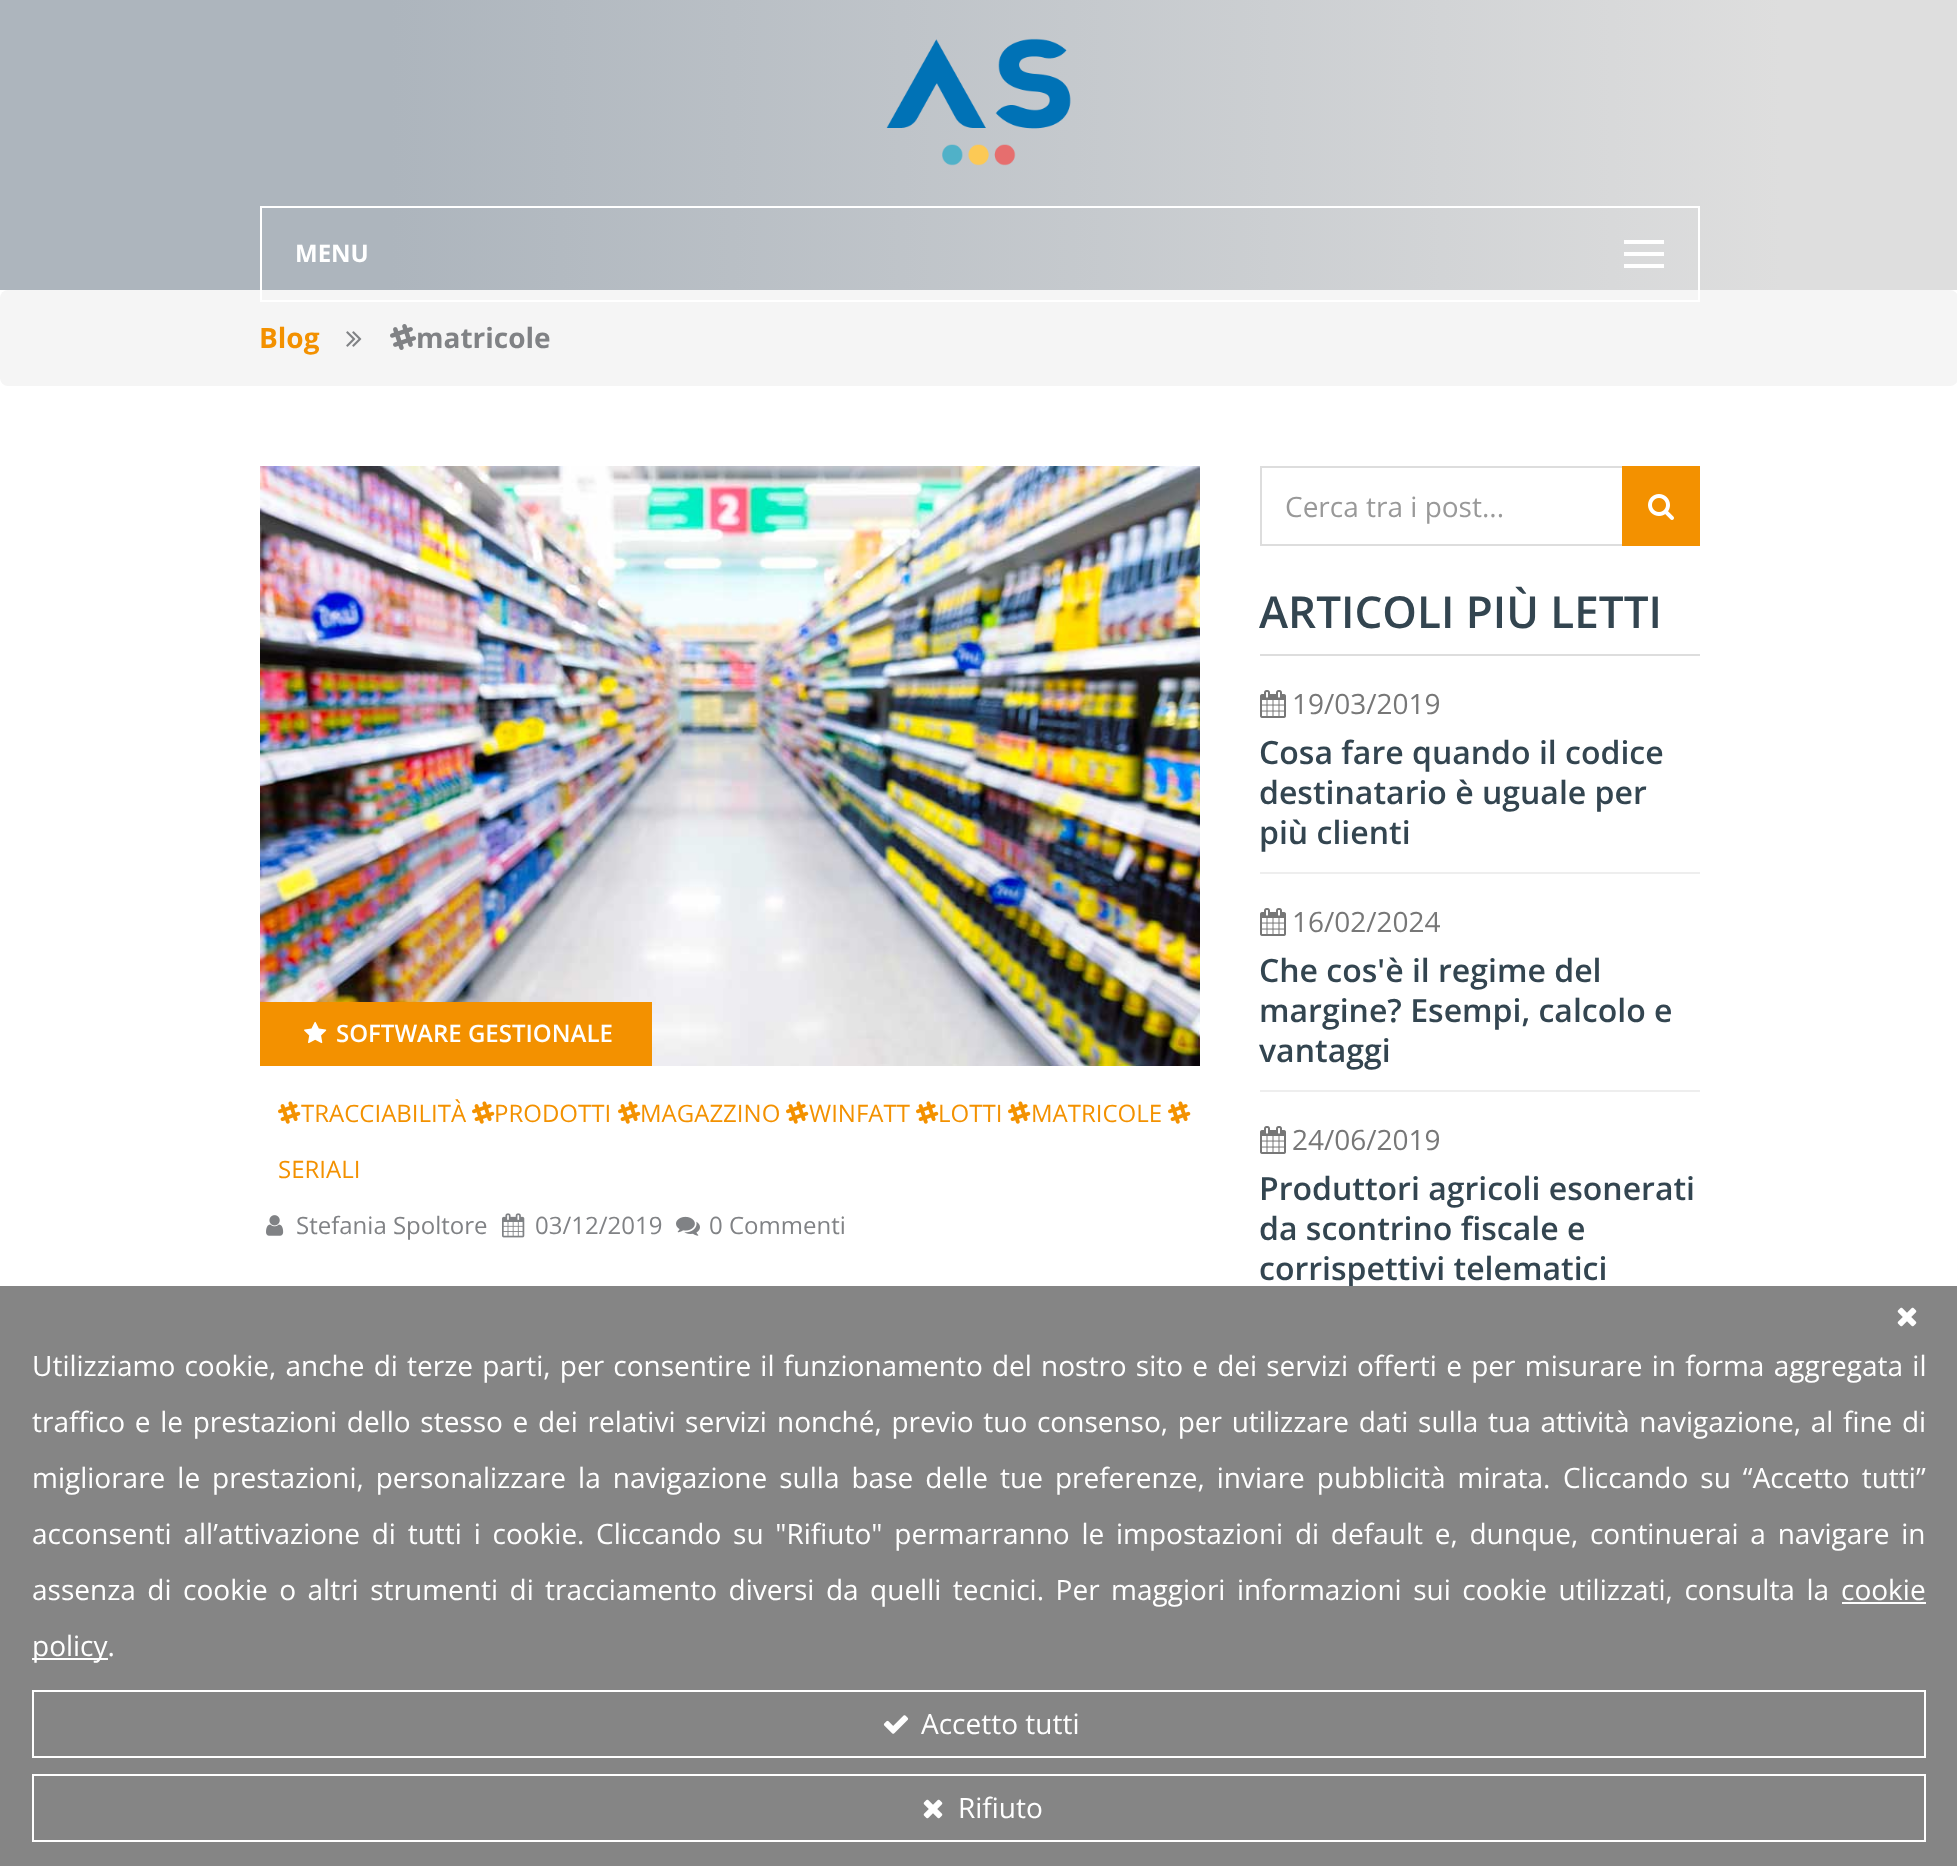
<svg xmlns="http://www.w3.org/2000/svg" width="1957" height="1866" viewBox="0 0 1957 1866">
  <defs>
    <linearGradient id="g1" gradientUnits="userSpaceOnUse" x1="0" y1="145" x2="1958" y2="145"><stop offset="0.2" stop-color="rgb(173,181,189)"/><stop offset="0.91" stop-color="rgb(222,222,222)"/></linearGradient>
  </defs>
  <rect width="100%" height="100%" fill="rgb(255,255,255)"/>
  <rect x="0" y="0" width="1957" height="290" fill="url(#g1)"/>
  <image x="886" y="38" width="185" height="128" href="pic1.png"/>
  <rect x="0" y="290" width="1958" height="96" rx="8" fill="rgb(245,245,245)"/>
  <rect x="261" y="207" width="1438" height="94" fill="none" stroke="rgb(255,255,255)" stroke-width="2"/>
  <rect x="1624" y="240" width="40" height="4" fill="rgb(255,255,255)"/>
  <text x="295" y="262" font-family="Open Sans" font-size="24" font-weight="bold" fill="rgb(255,255,255)">MENU</text>
  <rect x="1624" y="252" width="40" height="4" fill="rgb(255,255,255)"/>
  <rect x="1624" y="264" width="40" height="4" fill="rgb(255,255,255)"/>
  <text x="259" y="348" font-family="Open Sans" font-size="28" font-weight="bold" fill="rgb(243,145,0)">Blog</text>
  <image x="346" y="331" width="16" height="16" href="pic2.png"/>
  <image x="390" y="324" width="26" height="26" href="pic3.png"/>
  <text x="416" y="348" font-family="Open Sans" font-size="28" font-weight="bold" fill="rgb(128,130,133)">matricole</text>
  <image x="260" y="466" width="940" height="600" href="pic4.png"/>
  <rect x="260" y="1002" width="392" height="64" fill="rgb(243,145,0)"/>
  <image x="304" y="1021" width="23" height="23" href="pic5.png"/>
  <text x="336" y="1042" font-family="Open Sans" font-size="24" font-weight="600" fill="rgb(255,255,255)">SOFTWARE GESTIONALE</text>
  <image x="278" y="1101" width="23" height="23" href="pic6.png"/>
  <text x="301" y="1122" font-family="Open Sans" font-size="24" fill="rgb(243,145,0)">TRACCIABILITÀ</text>
  <image x="472" y="1101" width="23" height="23" href="pic6.png"/>
  <text x="494" y="1122" font-family="Open Sans" font-size="24" fill="rgb(243,145,0)">PRODOTTI</text>
  <image x="618" y="1101" width="23" height="23" href="pic6.png"/>
  <text x="640" y="1122" font-family="Open Sans" font-size="24" fill="rgb(243,145,0)">MAGAZZINO</text>
  <image x="786" y="1101" width="23" height="23" href="pic6.png"/>
  <text x="809" y="1122" font-family="Open Sans" font-size="24" fill="rgb(243,145,0)">WINFATT</text>
  <image x="916" y="1101" width="23" height="23" href="pic6.png"/>
  <text x="938" y="1122" font-family="Open Sans" font-size="24" fill="rgb(243,145,0)">LOTTI</text>
  <image x="1008" y="1101" width="23" height="23" href="pic6.png"/>
  <text x="1031" y="1122" font-family="Open Sans" font-size="24" fill="rgb(243,145,0)">MATRICOLE</text>
  <image x="1168" y="1101" width="23" height="23" href="pic6.png"/>
  <text x="278" y="1178" font-family="Open Sans" font-size="24" fill="rgb(243,145,0)">SERIALI</text>
  <image x="266" y="1215" width="18" height="21" href="pic7.png"/>
  <text x="296" y="1234" font-family="Open Sans" font-size="24" fill="rgb(128,130,133)">Stefania Spoltore</text>
  <image x="502" y="1213" width="23" height="25" href="pic8.png"/>
  <text x="535" y="1234" font-family="Open Sans" font-size="24" fill="rgb(128,130,133)">03/12/2019</text>
  <image x="676" y="1216" width="24" height="20" href="pic9.png"/>
  <text x="709" y="1234" font-family="Open Sans" font-size="24" fill="rgb(128,130,133)">0 Commenti</text>
  <rect x="1261" y="467" width="362" height="78" fill="none" stroke="rgb(221,221,221)" stroke-width="2"/>
  <text x="1285" y="517" font-family="Open Sans" font-size="28" fill="rgb(153,153,153)">Cerca tra i post...</text>
  <rect x="1622" y="466" width="78" height="80" fill="rgb(243,145,0)"/>
  <image x="1648" y="494" width="26" height="26" href="pic10.png"/>
  <text x="1259" y="628" font-family="Open Sans" font-size="44" font-weight="600" fill="rgb(51,69,80)">ARTICOLI PIÙ LETTI</text>
  <rect x="1260" y="654" width="440" height="2" fill="rgb(221,221,221)"/>
  <image x="1260" y="690" width="26" height="28" href="pic11.png"/>
  <text x="1292" y="714" font-family="Open Sans" font-size="28" fill="rgb(119,119,119)">19/03/2019</text>
  <g font-family="Open Sans" font-size="32" font-weight="600" fill="rgb(51,69,80)">
    <text>
      <tspan x="1259" y="764">Cosa fare quando il codice</tspan>
      <tspan x="1259" y="804">destinatario è uguale per</tspan>
      <tspan x="1259" y="844">più clienti</tspan>
    </text>
  </g>
  <rect x="1260" y="872" width="440" height="2" fill="rgb(238,238,238)"/>
  <image x="1260" y="908" width="26" height="28" href="pic11.png"/>
  <text x="1292" y="932" font-family="Open Sans" font-size="28" fill="rgb(119,119,119)">16/02/2024</text>
  <g font-family="Open Sans" font-size="32" font-weight="600" fill="rgb(51,69,80)">
    <text>
      <tspan x="1259" y="982">Che cos'è il regime del</tspan>
      <tspan x="1259" y="1022">margine? Esempi, calcolo e</tspan>
      <tspan x="1259" y="1062">vantaggi</tspan>
    </text>
  </g>
  <rect x="1260" y="1090" width="440" height="2" fill="rgb(238,238,238)"/>
  <image x="1260" y="1126" width="26" height="28" href="pic11.png"/>
  <text x="1292" y="1150" font-family="Open Sans" font-size="28" fill="rgb(119,119,119)">24/06/2019</text>
  <g font-family="Open Sans" font-size="32" font-weight="600" fill="rgb(51,69,80)">
    <text>
      <tspan x="1259" y="1200">Produttori agricoli esonerati</tspan>
      <tspan x="1259" y="1240">da scontrino fiscale e</tspan>
      <tspan x="1259" y="1280">corrispettivi telematici</tspan>
    </text>
  </g>
  <rect x="0" y="1286" width="1957" height="580" fill="rgb(133,133,133)"/>
  <image x="1897" y="1307" width="20" height="20" href="pic12.png"/>
  <g font-family="Open Sans" font-size="28" fill="rgb(255,255,255)">
    <text x="32" y="1376" word-spacing="1.9">Utilizziamo cookie, anche di terze parti, per consentire il funzionamento del nostro sito e dei servizi</text>
    <text x="1357" y="1376" word-spacing="2">offerti e per misurare in forma aggregata il</text>
    <text x="32" y="1432" word-spacing="2.4">traffico e le prestazioni dello stesso e dei relativi servizi</text>
    <text x="777" y="1432" word-spacing="2.4">nonché, previo tuo consenso, per utilizzare dati sulla tua attività navigazione, al fine di</text>
    <text x="32" y="1488" word-spacing="4.75">migliorare le</text>
    <text x="212" y="1488" word-spacing="4.75">prestazioni, personalizzare la navigazione sulla base delle tue preferenze, inviare pubblicità mirata.</text>
    <text x="1563" y="1488" word-spacing="4.75">Cliccando su “Accetto tutti”</text>
    <text x="32" y="1544" word-spacing="4.5">acconsenti all’attivazione di tutti i cookie.</text>
    <text x="596" y="1544" word-spacing="4.5">Cliccando su "Rifiuto" permarranno le</text>
    <text x="1116" y="1544" word-spacing="4.5">impostazioni di default e, dunque, continuerai a navigare in</text>
    <text x="32" y="1600" word-spacing="4.25">assenza di cookie o altri strumenti di</text>
    <text x="545" y="1600" word-spacing="4.25">tracciamento diversi da quelli tecnici. Per maggiori informazioni sui cookie utilizzati, consulta la</text>
    <text x="1841" y="1600">cookie</text>
  </g>
  <rect x="1842" y="1602" width="84" height="2" fill="rgb(255,255,255)"/>
  <rect x="32" y="1658" width="76" height="2" fill="rgb(255,255,255)"/>
  <text x="32" y="1656" font-family="Open Sans" font-size="28" fill="rgb(255,255,255)">policy.</text>
  <rect x="33" y="1691" width="1892" height="66" fill="none" stroke="rgb(255,255,255)" stroke-width="2"/>
  <image x="883" y="1715" width="26" height="19" href="pic13.png"/>
  <text x="921" y="1734" font-family="Open Sans" font-size="28" fill="rgb(255,255,255)">Accetto tutti</text>
  <rect x="33" y="1775" width="1892" height="66" fill="none" stroke="rgb(255,255,255)" stroke-width="2"/>
  <image x="923" y="1799" width="20" height="20" href="pic12.png"/>
  <text x="958" y="1818" font-family="Open Sans" font-size="28" fill="rgb(255,255,255)">Rifiuto</text>
</svg>
